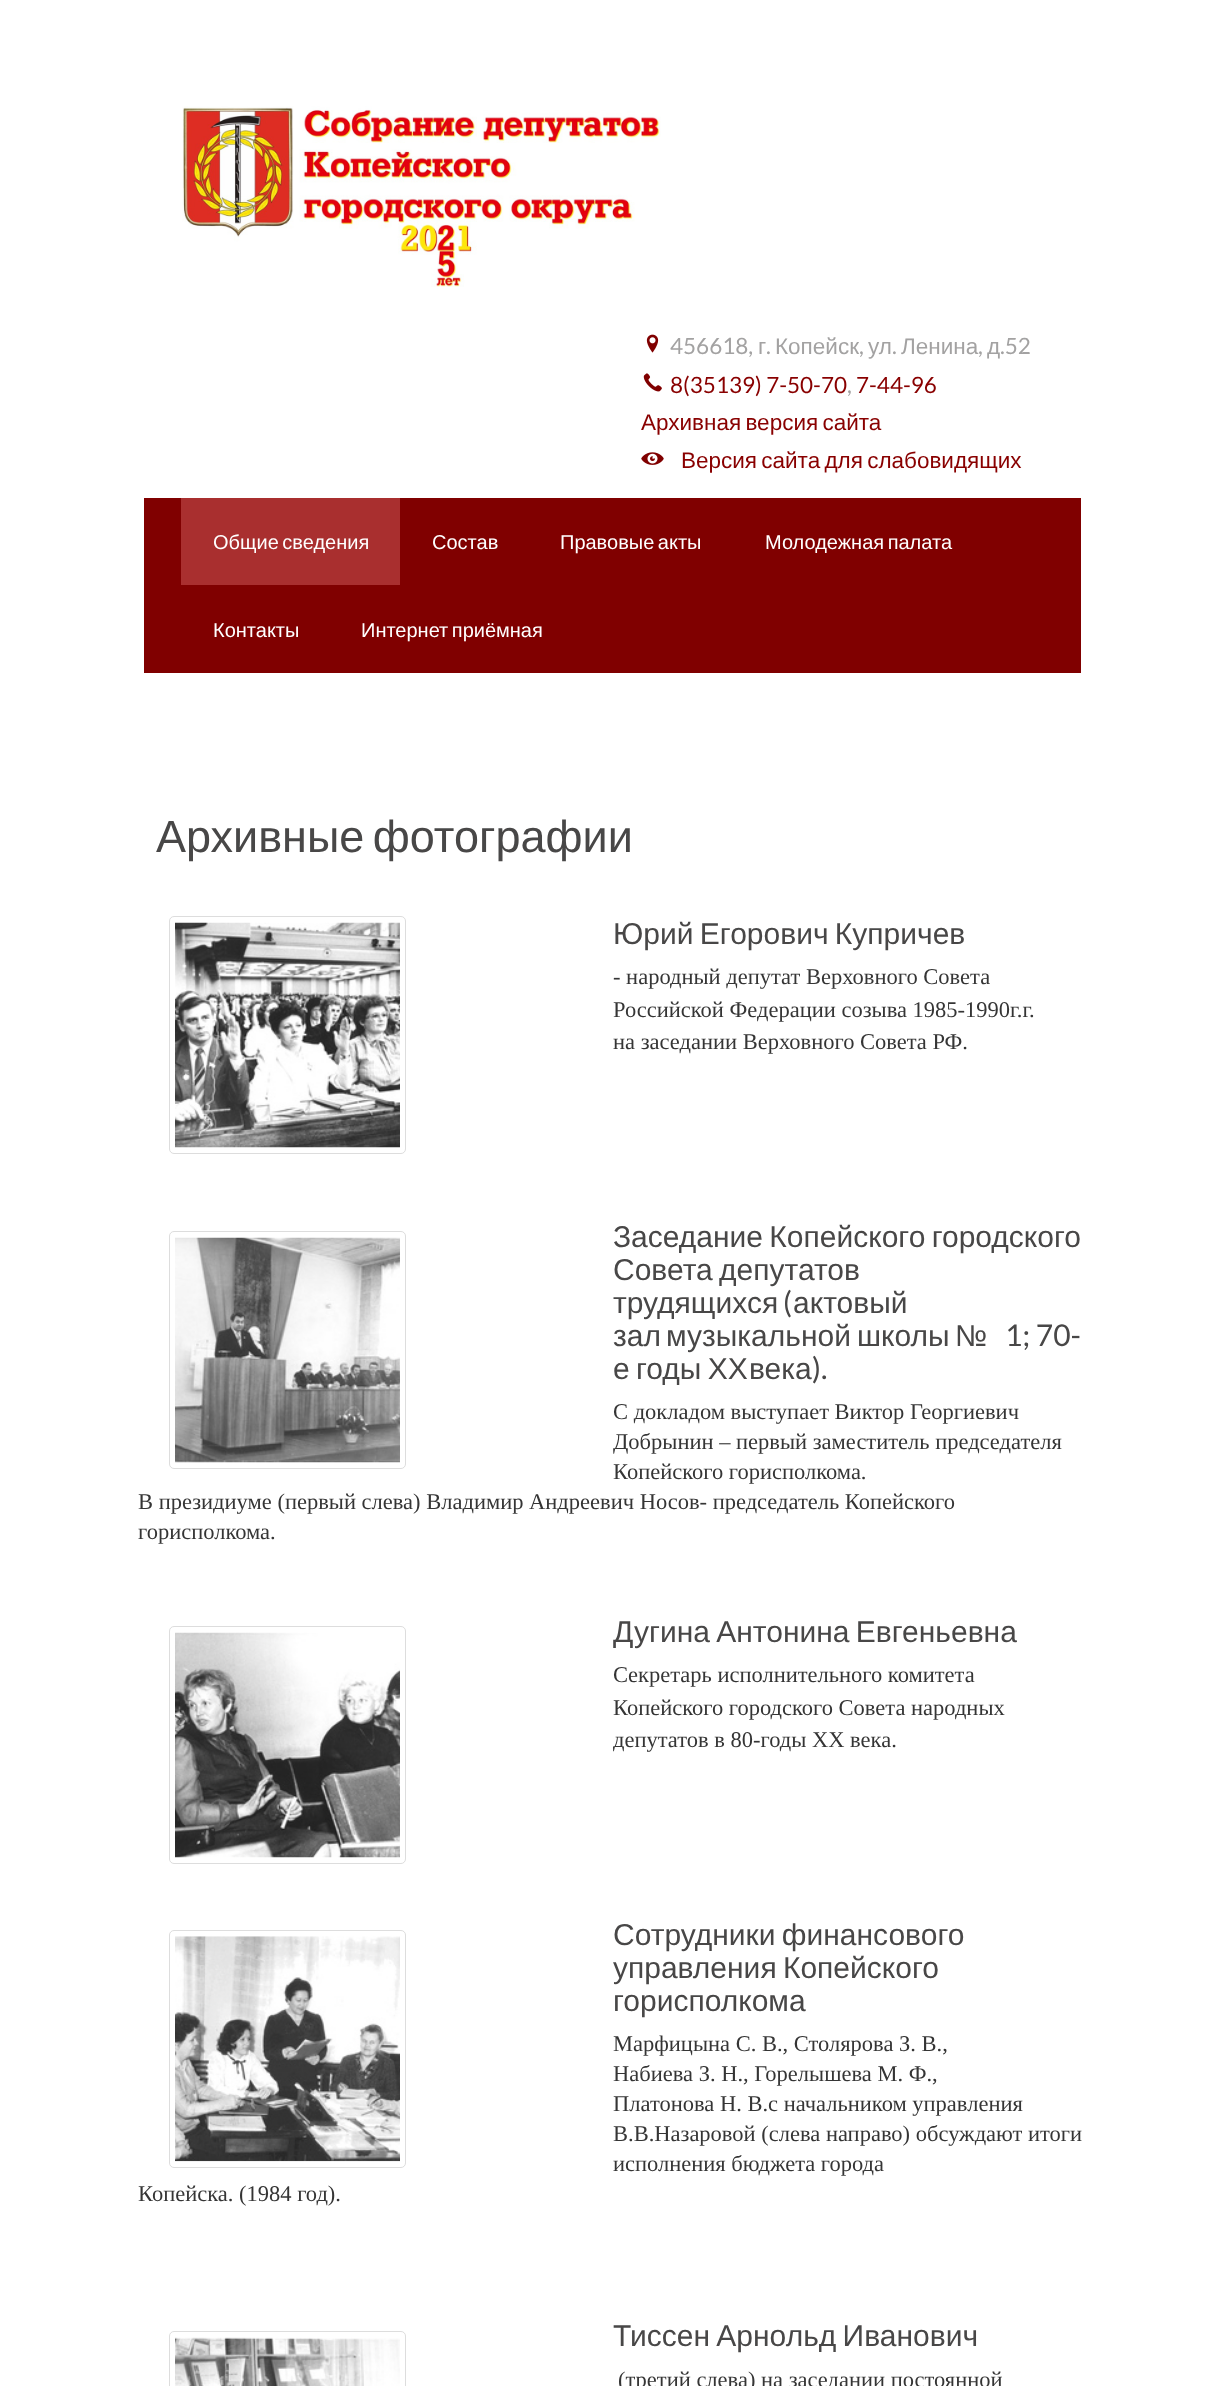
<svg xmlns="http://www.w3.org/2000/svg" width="1224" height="2386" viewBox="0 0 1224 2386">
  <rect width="100%" height="100%" fill="rgb(255,255,255)"/>
  <image x="182" y="106" width="479" height="181" href="pic1.png"/>
  <image x="646" y="334" width="13" height="19" href="pic2.png"/>
  <text x="670" y="354" font-family="Lato" font-size="22.5" fill="rgb(163,162,162)">456618,</text>
  <text x="758" y="354" font-family="Liberation Sans" font-size="22.5" fill="rgb(163,162,162)">г</text>
  <text x="766" y="354" font-family="Lato" font-size="22.5" fill="rgb(163,162,162)">.</text>
  <text x="775" y="354" font-family="Liberation Sans" font-size="22.5" fill="rgb(163,162,162)">Копейск</text>
  <text x="859" y="354" font-family="Lato" font-size="22.5" fill="rgb(163,162,162)">,</text>
  <text x="868" y="354" font-family="Liberation Sans" font-size="22.5" fill="rgb(163,162,162)">ул</text>
  <text x="892" y="354" font-family="Lato" font-size="22.5" fill="rgb(163,162,162)">.</text>
  <text x="901" y="354" font-family="Liberation Sans" font-size="22.5" fill="rgb(163,162,162)">Ленина</text>
  <text x="978" y="354" font-family="Lato" font-size="22.5" fill="rgb(163,162,162)">,</text>
  <text x="987" y="354" font-family="Liberation Sans" font-size="22.5" fill="rgb(163,162,162)">д</text>
  <text x="1000" y="354" font-family="Lato" font-size="22.5" fill="rgb(163,162,162)">.52</text>
  <image x="643" y="373" width="19" height="19" href="pic3.png"/>
  <text x="670" y="393" font-family="Lato" font-size="22.5" fill="rgb(137,0,0)">8(35139) 7-50-70</text>
  <text x="847" y="393" font-family="Lato" font-size="22.5" fill="rgb(163,162,162)">,</text>
  <text x="856" y="393" font-family="Lato" font-size="22.5" fill="rgb(137,0,0)">7-44-96</text>
  <text x="641" y="430" word-spacing="-2" font-family="Liberation Sans" font-size="22.5" fill="rgb(137,0,0)">Архивная версия сайта</text>
  <image x="641" y="452" width="23" height="13" href="pic4.png"/>
  <text x="681" y="468" word-spacing="-2" font-family="Liberation Sans" font-size="22.5" fill="rgb(137,0,0)">Версия сайта для слабовидящих</text>
  <rect x="144" y="498" width="937" height="175" fill="rgb(128,0,0)"/>
  <rect x="181" y="498" width="219" height="87" fill="rgb(169,47,47)"/>
  <g font-family="Liberation Sans" font-size="20" fill="rgb(255,255,255)">
    <text x="213" y="549" word-spacing="-2">Общие сведения</text>
    <text x="432" y="549">Состав</text>
    <text x="560" y="549" word-spacing="-2">Правовые акты</text>
    <text x="765" y="549" word-spacing="-2">Молодежная палата</text>
    <text x="213" y="637">Контакты</text>
    <text x="361" y="637" word-spacing="-2">Интернет приёмная</text>
  </g>
  <text x="156" y="852" word-spacing="-4" font-family="Liberation Sans" font-size="45" fill="rgb(72,71,71)">Архивные фотографии</text>
  <rect x="169.5" y="916.5" width="236" height="237" rx="4.5" fill="none" stroke="rgb(221,221,221)"/>
  <image x="175" y="922" width="225" height="226" href="pic5.png"/>
  <text x="613" y="944" word-spacing="-2" font-family="Liberation Sans" font-size="30" fill="rgb(72,71,71)">Юрий Егорович Купричев</text>
  <g font-family="Liberation Serif" font-size="22.5" fill="rgb(53,53,53)">
    <text>
      <tspan x="613" y="984">- народный депутат Верховного Совета</tspan>
      <tspan x="613" y="1017">Российской Федерации созыва 1985-1990г.г.</tspan>
      <tspan x="613" y="1049">на заседании Верховного Совета РФ.</tspan>
    </text>
  </g>
  <rect x="169.5" y="1231.5" width="236" height="237" rx="4.5" fill="none" stroke="rgb(221,221,221)"/>
  <image x="175" y="1237" width="225" height="226" href="pic6.png"/>
  <g font-family="Liberation Sans" font-size="30" fill="rgb(72,71,71)">
    <text>
      <tspan x="613" y="1247" word-spacing="-2">Заседание Копейского городского</tspan>
      <tspan x="613" y="1280" word-spacing="-2">Совета депутатов</tspan>
      <tspan x="613" y="1313">трудящихся</tspan>
    </text>
  </g>
  <text x="783" y="1313" font-family="Lato" font-size="30" fill="rgb(72,71,71)">(</text>
  <g font-family="Liberation Sans" font-size="30" fill="rgb(72,71,71)">
    <text x="793" y="1313">актовый</text>
    <text x="613" y="1346">зал</text>
    <text x="666" y="1346">музыкальной</text>
    <text x="857" y="1346">школы</text>
    <text x="955" y="1346">№</text>
  </g>
  <text x="1005" y="1346" font-family="Lato" font-size="30" fill="rgb(72,71,71)">1; 70-</text>
  <g font-family="Liberation Sans" font-size="30" fill="rgb(72,71,71)">
    <text x="613" y="1379" word-spacing="-2">е годы ХХ</text>
    <text x="749" y="1379">века</text>
  </g>
  <text x="812" y="1379" font-family="Lato" font-size="30" fill="rgb(72,71,71)">).</text>
  <g font-family="Liberation Serif" font-size="22.5" fill="rgb(53,53,53)">
    <text>
      <tspan x="613" y="1419">С докладом выступает Виктор Георгиевич</tspan>
      <tspan x="613" y="1449">Добрынин – первый заместитель председателя</tspan>
      <tspan x="613" y="1479">Копейского горисполкома.</tspan>
    </text>
    <text>
      <tspan x="138" y="1509">В президиуме (первый слева) Владимир Андреевич Носов- председатель Копейского</tspan>
      <tspan x="138" y="1539">горисполкома.</tspan>
    </text>
  </g>
  <rect x="169.5" y="1626.5" width="236" height="237" rx="4.5" fill="none" stroke="rgb(221,221,221)"/>
  <image x="175" y="1632" width="225" height="226" href="pic7.png"/>
  <text x="613" y="1642" word-spacing="-2" font-family="Liberation Sans" font-size="30" fill="rgb(72,71,71)">Дугина Антонина Евгеньевна</text>
  <g font-family="Liberation Serif" font-size="22.5" fill="rgb(53,53,53)">
    <text>
      <tspan x="613" y="1682">Cекретарь исполнительного комитета</tspan>
      <tspan x="613" y="1715">Копейского городского Совета народных</tspan>
      <tspan x="613" y="1747">депутатов в 80-годы ХХ века.</tspan>
    </text>
  </g>
  <rect x="169.5" y="1930.5" width="236" height="237" rx="4.5" fill="none" stroke="rgb(221,221,221)"/>
  <image x="175" y="1936" width="225" height="226" href="pic8.png"/>
  <g font-family="Liberation Sans" font-size="30" fill="rgb(72,71,71)">
    <text>
      <tspan x="613" y="1945" word-spacing="-2">Сотрудники финансового</tspan>
      <tspan x="613" y="1978" word-spacing="-2">управления Копейского</tspan>
      <tspan x="613" y="2011">горисполкома</tspan>
    </text>
  </g>
  <g font-family="Liberation Serif" font-size="22.5" fill="rgb(53,53,53)">
    <text>
      <tspan x="613" y="2051">Марфицына С. В., Столярова З. В.,</tspan>
      <tspan x="613" y="2081">Набиева З. Н., Горелышева М. Ф.,</tspan>
      <tspan x="613" y="2111">Платонова Н. В.с начальником управления</tspan>
      <tspan x="613" y="2141">В.В.Назаровой (слева направо) обсуждают итоги</tspan>
      <tspan x="613" y="2171">исполнения бюджета города</tspan>
    </text>
    <text x="138" y="2201">Копейска. (1984 год).</text>
  </g>
  <rect x="169.5" y="2331.5" width="236" height="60" rx="4.5" fill="none" stroke="rgb(221,221,221)"/>
  <image x="175" y="2337" width="225" height="49" href="pic9.png"/>
  <text x="613" y="2346" word-spacing="-2" font-family="Liberation Sans" font-size="30" fill="rgb(72,71,71)">Тиссен Арнольд Иванович</text>
  <text x="618" y="2387" font-family="Liberation Serif" font-size="22.5" fill="rgb(53,53,53)">(третий слева) на заседании постоянной</text>
</svg>
